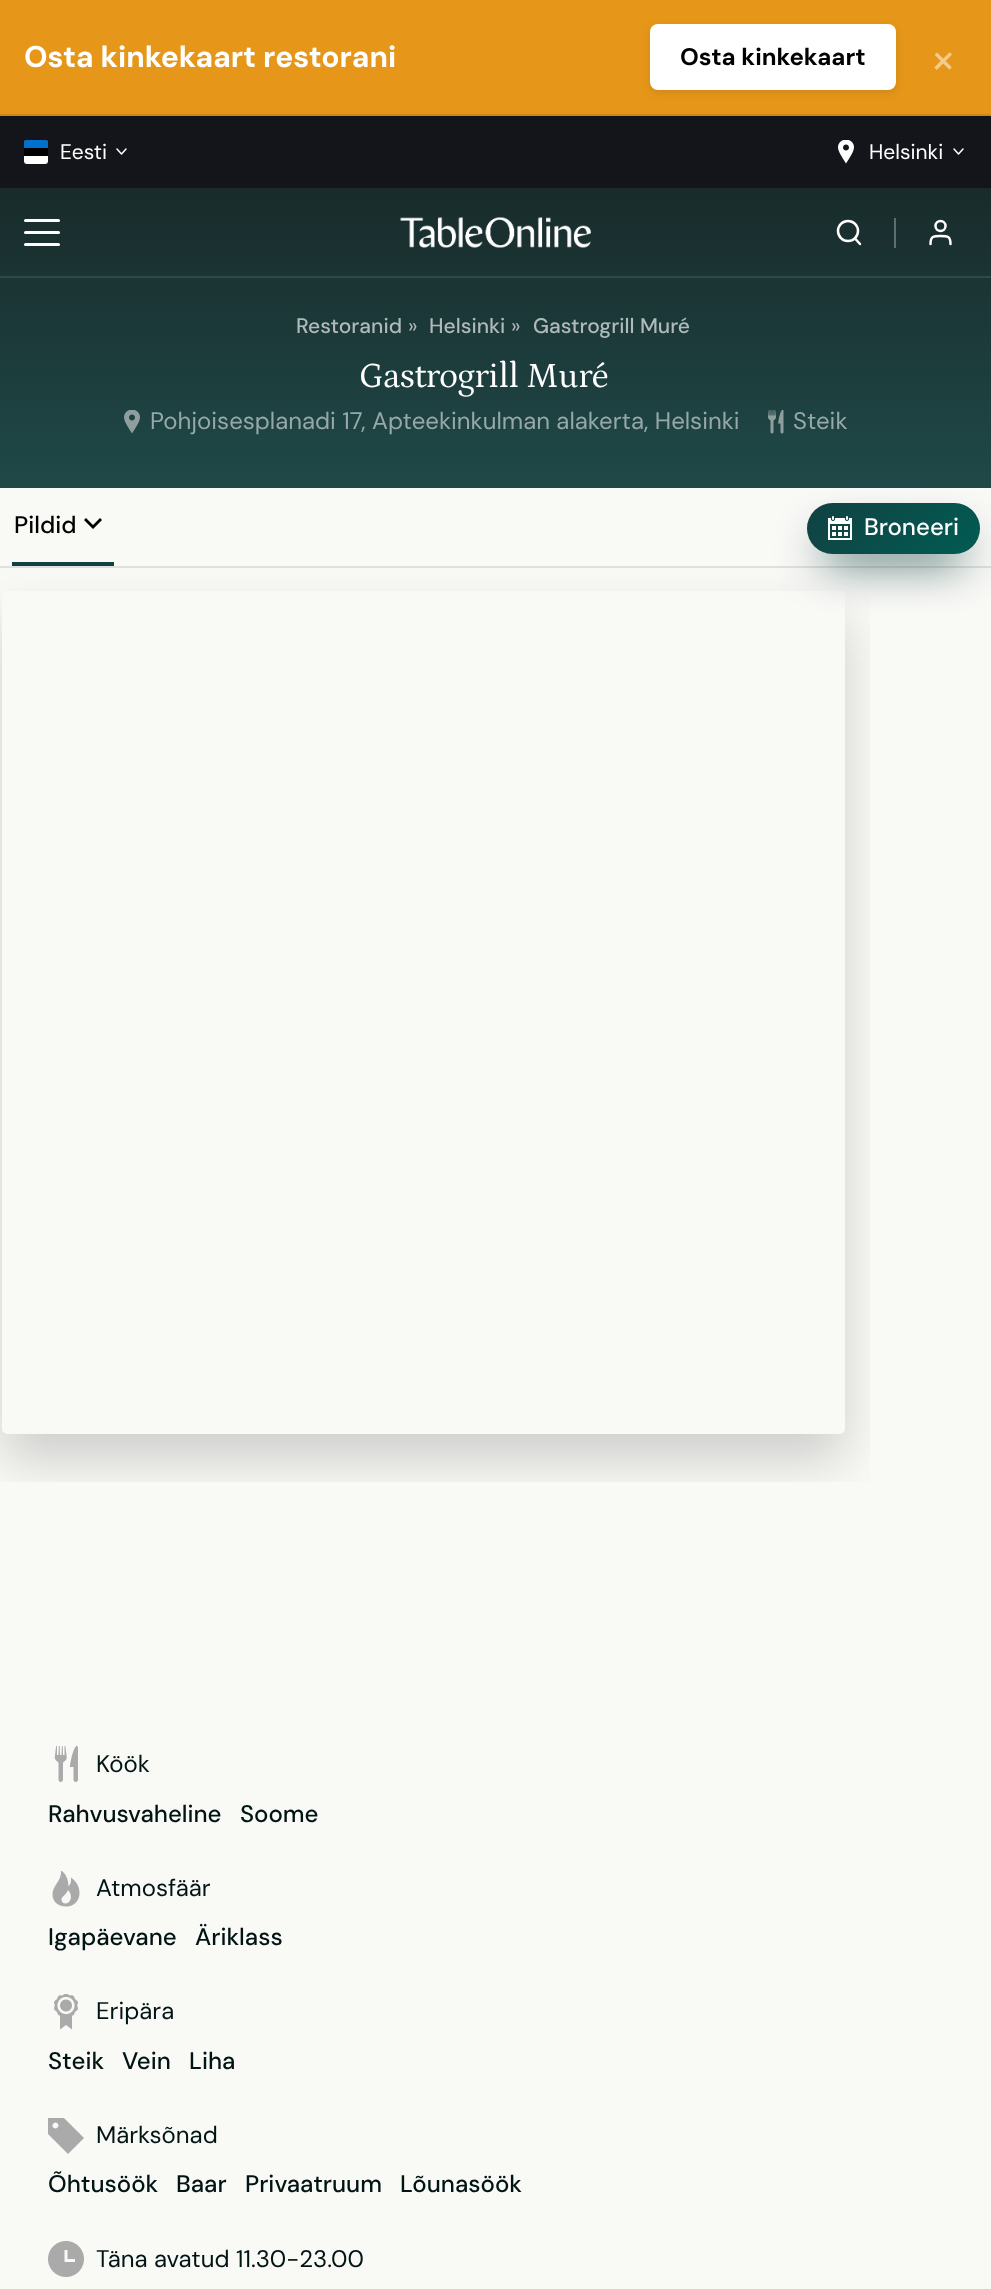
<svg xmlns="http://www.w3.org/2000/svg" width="991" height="2289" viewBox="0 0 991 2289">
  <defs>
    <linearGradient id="g1" gradientUnits="userSpaceOnUse" x1="496" y1="187" x2="496" y2="488"><stop offset="0" stop-color="rgb(25,43,43)"/><stop offset="1" stop-color="rgb(31,73,72)"/></linearGradient>
    <linearGradient id="g2" gradientUnits="userSpaceOnUse" x1="496" y1="187" x2="496" y2="488"><stop offset="0" stop-color="rgb(94,107,107)"/><stop offset="1" stop-color="rgb(98,128,127)"/></linearGradient>
    <clipPath id="clip1"><rect x="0" y="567" width="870" height="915"/></clipPath>
    <clipPath id="clip2"><path d="M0 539H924V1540H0ZM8 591H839C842.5 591 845 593.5 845 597V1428C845 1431.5 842.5 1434 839 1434H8C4.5 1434 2 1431.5 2 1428V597C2 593.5 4.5 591 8 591Z" clip-rule="evenodd"/></clipPath>
    <linearGradient id="g3" gradientUnits="userSpaceOnUse" x1="949" y1="584" x2="837" y2="472"><stop offset="0" stop-color="rgb(0,92,83)"/><stop offset="1" stop-color="rgb(18,65,66)"/></linearGradient>
  </defs>
  <rect width="100%" height="100%" fill="rgb(249,249,246)"/>
  <rect x="0" y="0" width="991" height="114" fill="rgb(230,151,25)"/>
  <rect x="0" y="114" width="991" height="2" fill="rgb(207,136,23)"/>
  <text x="24" y="67" font-family="DM Sans" font-size="30" font-weight="bold" fill="rgb(255,255,255)">Osta kinkekaart restorani</text>
  <rect x="650" y="27" width="246" height="66" rx="8" fill="rgba(0,0,0,0.1)" filter="blur(4.5px)"/>
  <rect x="650" y="24" width="246" height="66" rx="8" fill="rgb(255,255,255)"/>
  <text x="680" y="65" font-family="DM Sans" font-size="24" font-weight="bold" fill="rgb(0,0,0)">Osta kinkekaart</text>
  <text x="930" y="75" font-family="DM Sans" font-size="48" fill="rgb(243,203,140)">×</text>
  <rect x="0" y="116" width="991" height="72" fill="rgb(20,21,26)"/>
  <rect x="24" y="140" width="24" height="24" rx="3" fill="rgb(255,255,255)"/>
  <path d="M27 140H45C46.5 140 48 141.5 48 143V156H24V143C24 141.5 25.5 140 27 140Z" fill="rgb(0,0,0)"/>
  <path d="M27 140H45C46.5 140 48 141.5 48 143V148H24V143C24 141.5 25.5 140 27 140Z" fill="rgb(0,114,206)"/>
  <text x="60" y="159" font-family="DM Sans" font-size="21" fill="rgb(255,255,255)">Eesti</text>
  <path d="M117 149L121.5 154L126 149" fill="none" stroke="rgb(255,255,255)" stroke-width="1.5" stroke-linecap="round" stroke-linejoin="round"/>
  <image x="838" y="140" width="16" height="24" href="pic1.png"/>
  <text x="869" y="159" font-family="DM Sans" font-size="21" fill="rgb(255,255,255)">Helsinki</text>
  <path d="M954 149L958.5 154L963 149" fill="none" stroke="rgb(255,255,255)" stroke-width="1.5" stroke-linecap="round" stroke-linejoin="round"/>
  <rect x="0" y="188" width="991" height="300" fill="url(#g1)"/>
  <rect x="0" y="276" width="991" height="2" fill="rgb(50,72,72)"/>
  <rect x="24" y="219" width="36" height="3" rx="1.5" fill="rgb(255,255,255)"/>
  <rect x="24" y="231" width="36" height="3" rx="1.5" fill="rgb(255,255,255)"/>
  <rect x="24" y="243" width="36" height="3" rx="1.5" fill="rgb(255,255,255)"/>
  <image x="400" y="217" width="191" height="31" href="pic2.png"/>
  <circle cx="848" cy="231" r="10" fill="none" stroke="rgb(255,255,255)" stroke-width="2.5"/>
  <path d="M860 244L855 238.5" fill="none" stroke="rgb(255,255,255)" stroke-width="2.5" stroke-linecap="round" stroke-linejoin="round"/>
  <path d="M950.5 244C950.5 236 947.5 236 940.5 236C933.5 236 930.5 236 930.5 244" fill="none" stroke="rgb(255,255,255)" stroke-width="2.5" stroke-linecap="round" stroke-linejoin="round"/>
  <circle cx="940.5" cy="226" r="5" fill="none" stroke="rgb(255,255,255)" stroke-width="2.5"/>
  <rect x="894" y="218" width="2" height="30" fill="url(#g2)"/>
  <text x="296" y="333" font-family="DM Sans" font-size="21" font-weight="500" fill="rgb(176,186,186)">Restoranid</text>
  <text x="408" y="333" font-family="DM Sans" font-size="21" fill="rgb(176,186,186)">»</text>
  <text x="429" y="333" font-family="DM Sans" font-size="21" font-weight="500" fill="rgb(176,186,186)">Helsinki</text>
  <text x="511" y="333" font-family="DM Sans" font-size="21" fill="rgb(176,186,186)">»</text>
  <text x="533" y="333" font-family="DM Sans" font-size="21" font-weight="500" fill="rgb(176,186,186)">Gastrogrill Muré</text>
  <text x="359" y="387" font-family="Petrona" font-size="36" letter-spacing="-0.6" fill="rgb(255,255,255)">Gastrogrill Muré</text>
  <image x="124" y="410" width="16" height="24" href="pic3.png"/>
  <text x="150" y="429" font-family="DM Sans" font-size="24" fill="rgb(151,168,168)">Pohjoisesplanadi 17, Apteekinkulman alakerta, Helsinki</text>
  <image x="768" y="410" width="16" height="24" href="pic4.png"/>
  <text x="793" y="429" font-family="DM Sans" font-size="24" fill="rgb(151,168,168)">Steik</text>
  <g clip-path="url(#clip1)">
    <g clip-path="url(#clip2)">
      <rect x="2" y="618" width="843" height="843" rx="6" fill="rgba(0,0,0,0.17)" filter="blur(26px)"/>
    </g>
  </g>
  <rect x="0" y="566" width="991" height="2" fill="rgb(224,224,221)"/>
  <rect x="12" y="562" width="102" height="4" fill="rgb(18,65,66)"/>
  <text x="14" y="533" font-family="DM Sans" font-size="24" font-weight="500" fill="rgb(0,0,0)">Pildid</text>
  <path d="M84 520L86 518L93 525L100 518L102 520L93 529Z" fill="rgb(0,0,0)"/>
  <rect x="822" y="540" width="143" height="21" rx="10.5" fill="rgb(18,65,66)" filter="blur(22.5px)"/>
  <rect x="807" y="503" width="173" height="51" rx="25.5" fill="url(#g3)"/>
  <image x="828" y="516" width="24" height="24" href="pic5.png"/>
  <text x="864" y="535" font-family="DM Sans" font-size="24" font-weight="500" fill="rgb(255,255,255)">Broneeri</text>
  <image x="54" y="1746" width="24" height="36" href="pic6.png"/>
  <text x="96" y="1772" font-family="DM Sans" font-size="24" fill="rgb(0,20,20)">Köök</text>
  <g font-family="DM Sans" font-size="24" font-weight="500" fill="rgb(0,20,20)">
    <text x="48" y="1822">Rahvusvaheline</text>
    <text x="240" y="1822">Soome</text>
  </g>
  <image x="52" y="1871" width="28" height="36" href="pic7.png"/>
  <text x="96" y="1896" font-family="DM Sans" font-size="24" fill="rgb(0,20,20)">Atmosfäär</text>
  <g font-family="DM Sans" font-size="24" font-weight="500" fill="rgb(0,20,20)">
    <text x="48" y="1945">Igapäevane</text>
    <text x="195" y="1945">Äriklass</text>
  </g>
  <image x="54" y="1994" width="24" height="36" href="pic8.png"/>
  <text x="96" y="2019" font-family="DM Sans" font-size="24" fill="rgb(0,20,20)">Eripära</text>
  <g font-family="DM Sans" font-size="24" font-weight="500" fill="rgb(0,20,20)">
    <text x="48" y="2069">Steik</text>
    <text x="122" y="2069">Vein</text>
    <text x="189" y="2069">Liha</text>
  </g>
  <path d="M64 2118H48V2134L68 2154L84 2138ZM57.5 2127.5C55 2130.5 50.5 2126 53.5 2123.5C56 2120.5 60.5 2125 57.5 2127.5Z" fill="rgb(170,170,170)" fill-rule="evenodd"/>
  <text x="96" y="2143" font-family="DM Sans" font-size="24" fill="rgb(0,20,20)">Märksõnad</text>
  <g font-family="DM Sans" font-size="24" font-weight="500" fill="rgb(0,20,20)">
    <text x="48" y="2192">Õhtusöök</text>
    <text x="176" y="2192">Baar</text>
    <text x="245" y="2192">Privaatruum</text>
    <text x="400" y="2192">Lõunasöök</text>
  </g>
  <image x="48" y="2241" width="36" height="36" href="pic9.png"/>
  <text x="96" y="2267" font-family="DM Sans" font-size="24" fill="rgb(0,20,20)">Täna avatud 11.30-23.00</text>
</svg>
